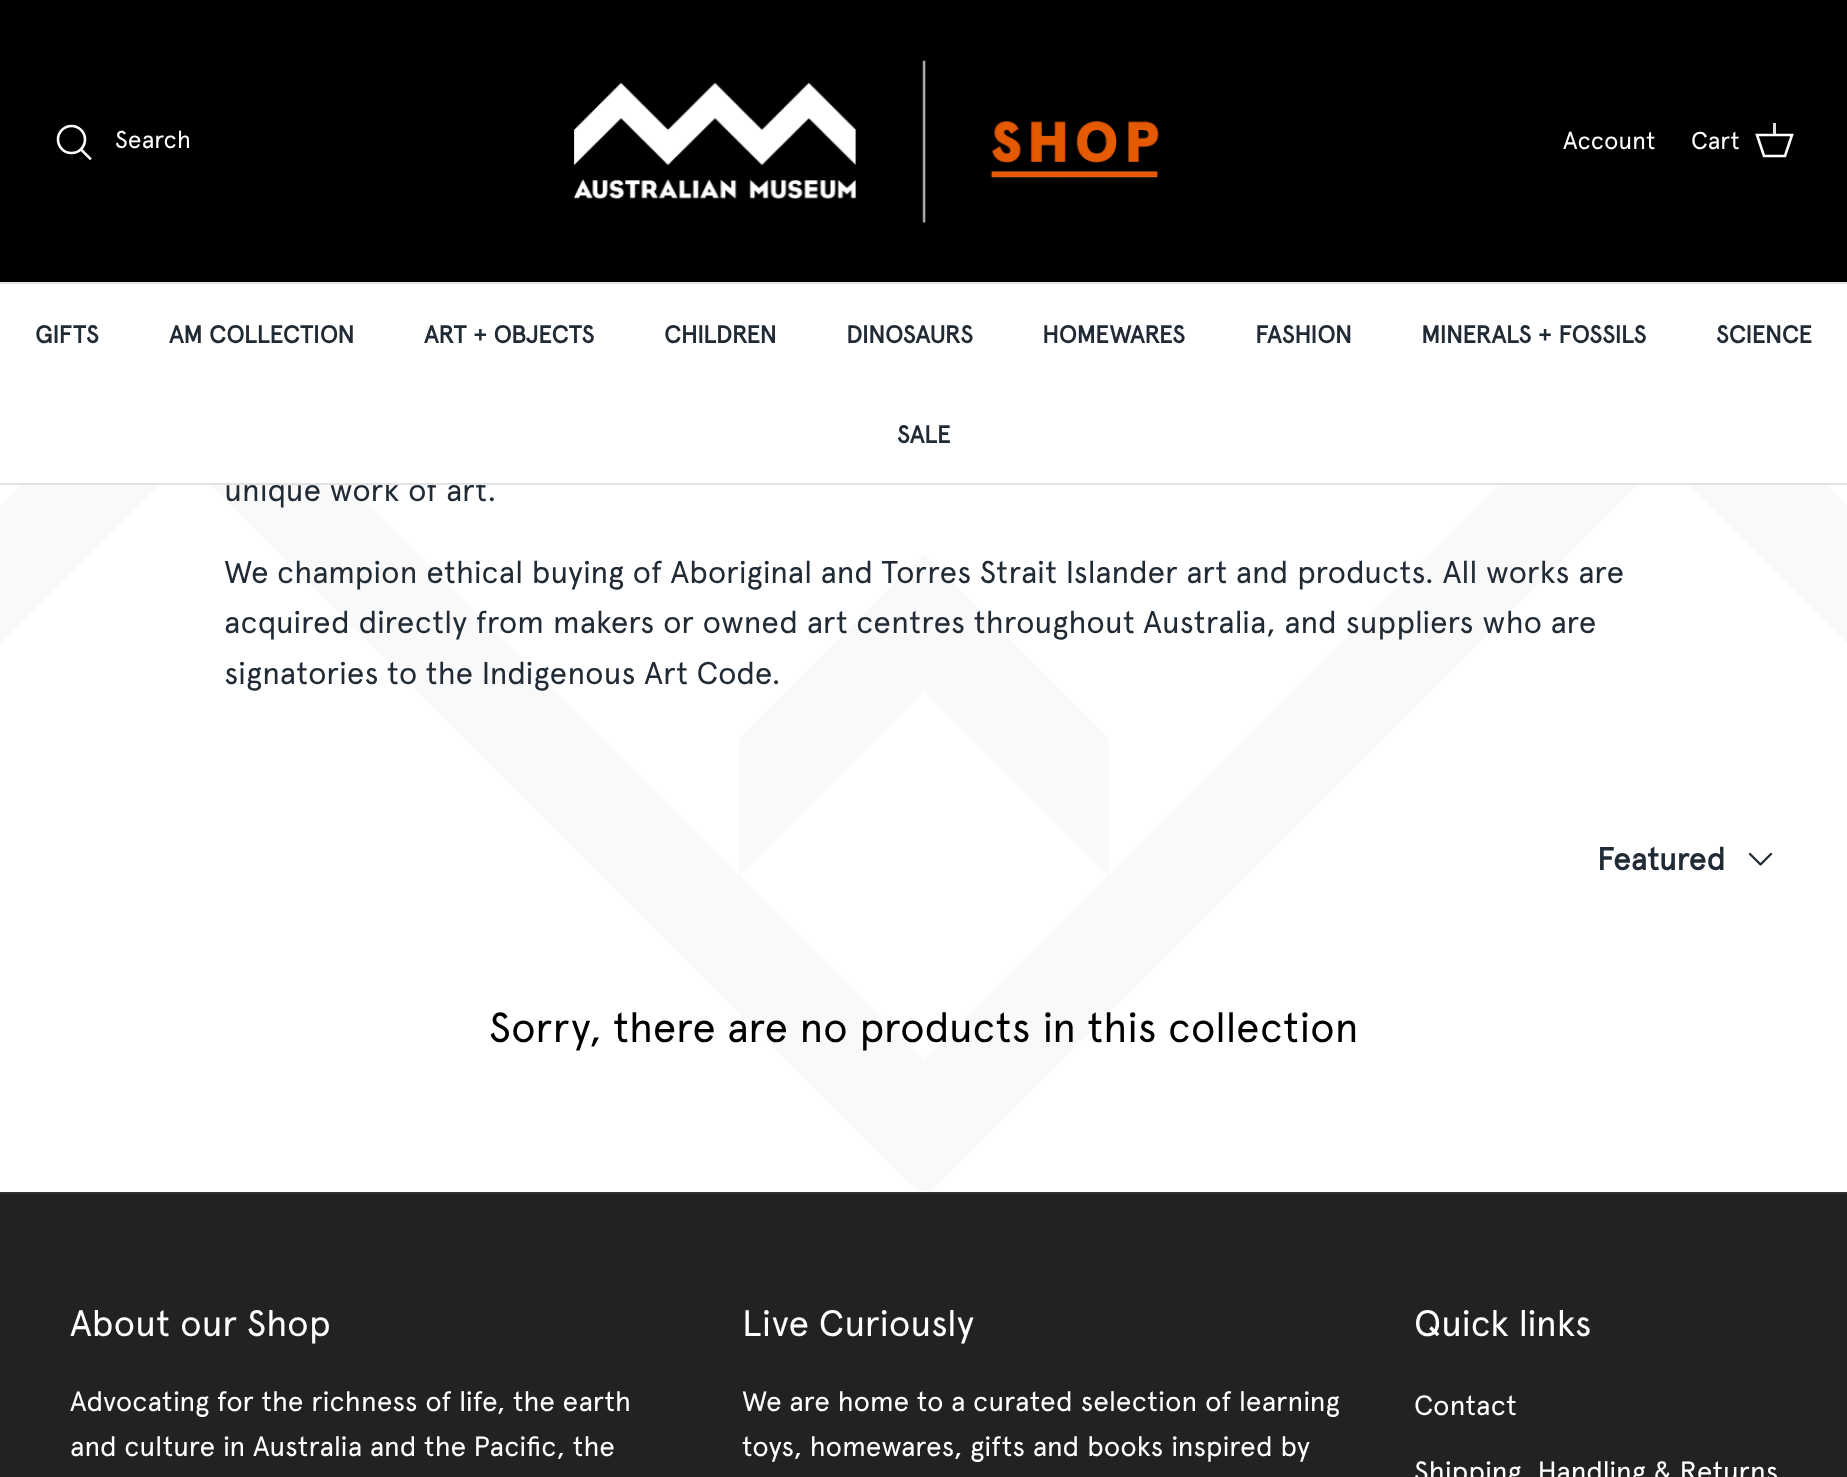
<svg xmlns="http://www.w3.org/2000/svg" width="1847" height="1477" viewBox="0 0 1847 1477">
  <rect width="100%" height="100%" fill="rgb(255,255,255)"/>
  <rect x="0" y="0" width="1847" height="282" fill="rgb(0,0,0)"/>
  <rect x="0" y="282" width="1847" height="2" fill="rgb(226,226,226)"/>
  <circle cx="71.5" cy="139.5" r="13.5" fill="none" stroke="rgb(255,255,255)" stroke-width="2.6"/>
  <text x="115" y="148" font-family="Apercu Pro" font-size="24.5" fill="rgb(255,255,255)">Search</text>
  <path d="M82 150.5L90 158.5" fill="none" stroke="rgb(255,255,255)" stroke-width="2.6" stroke-linecap="square"/>
  <image x="574" y="60" width="586" height="163" href="pic1.png"/>
  <g font-family="Apercu Pro" font-size="24.5" fill="rgb(255,255,255)">
    <text x="1563" y="149">Account</text>
    <text x="1691" y="149">Cart</text>
  </g>
  <path d="M1757 135H1792L1785 156H1764Z" fill="none" stroke="rgb(255,255,255)" stroke-width="2.6"/>
  <rect x="1773" y="123" width="3" height="13" fill="rgba(255,255,255,0.87)"/>
  <image x="0" y="485" width="1847" height="706" href="pic2.png"/>
  <text x="224" y="501" font-family="Apercu Pro" font-size="31.5" fill="rgb(33,43,54)">unique work of art.</text>
  <rect x="0" y="483" width="1847" height="2" fill="rgb(226,226,226)"/>
  <rect x="261" y="478" width="221" height="5" fill="rgb(255,255,255)"/>
  <g font-family="Apercu Pro" font-size="24.5" font-weight="bold" fill="rgb(33,43,54)">
    <text x="35" y="343">GIFTS</text>
    <text x="169" y="343">AM COLLECTION</text>
    <text x="424" y="343">ART + OBJECTS</text>
    <text x="664" y="343">CHILDREN</text>
    <text x="846" y="343">DINOSAURS</text>
    <text x="1042" y="343">HOMEWARES</text>
    <text x="1255" y="343">FASHION</text>
    <text x="1421" y="343">MINERALS + FOSSILS</text>
    <text x="1716" y="343">SCIENCE</text>
    <text x="897" y="443">SALE</text>
  </g>
  <g font-family="Apercu Pro" font-size="31.5" fill="rgb(33,43,54)">
    <text>
      <tspan x="224" y="583">We champion ethical buying of Aboriginal and Torres Strait Islander art and products. All works are</tspan>
      <tspan x="224" y="633">acquired directly from makers or owned art centres throughout Australia, and suppliers who are</tspan>
      <tspan x="224" y="684">signatories to the Indigenous Art Code.</tspan>
    </text>
  </g>
  <text x="1597" y="870" font-family="Apercu Pro" font-size="31.5" font-weight="bold" fill="rgb(33,43,54)">Featured</text>
  <path d="M1750 854L1760.5 864.5L1771 854" fill="none" stroke="rgb(33,43,54)" stroke-width="2.3" stroke-linecap="round" stroke-linejoin="round"/>
  <text x="489" y="1042" font-family="Apercu Pro" font-size="42" fill="rgb(0,0,0)">Sorry, there are no products in this collection</text>
  <rect x="0" y="1194" width="1847" height="283" fill="rgb(34,34,34)"/>
  <rect x="0" y="1192" width="1847" height="2" fill="rgb(48,48,48)"/>
  <text x="70" y="1336" font-family="Apercu Pro" font-size="36.75" fill="rgb(255,255,255)">About our Shop</text>
  <g font-family="Apercu Pro" font-size="28" fill="rgb(255,255,255)">
    <text>
      <tspan x="70" y="1411">Advocating for the richness of life, the earth</tspan>
      <tspan x="70" y="1456">and culture in Australia and the Pacific, the</tspan>
    </text>
  </g>
  <text x="742" y="1336" font-family="Apercu Pro" font-size="36.75" fill="rgb(255,255,255)">Live Curiously</text>
  <g font-family="Apercu Pro" font-size="28" fill="rgb(255,255,255)">
    <text>
      <tspan x="742" y="1411">We are home to a curated selection of learning</tspan>
      <tspan x="742" y="1456">toys, homewares, gifts and books inspired by</tspan>
    </text>
  </g>
  <text x="1414" y="1336" font-family="Apercu Pro" font-size="36.75" fill="rgb(255,255,255)">Quick links</text>
  <g font-family="Apercu Pro" font-size="28" fill="rgb(255,255,255)">
    <text x="1414" y="1415">Contact</text>
    <text x="1414" y="1481">Shipping, Handling &amp; Returns</text>
  </g>
</svg>
